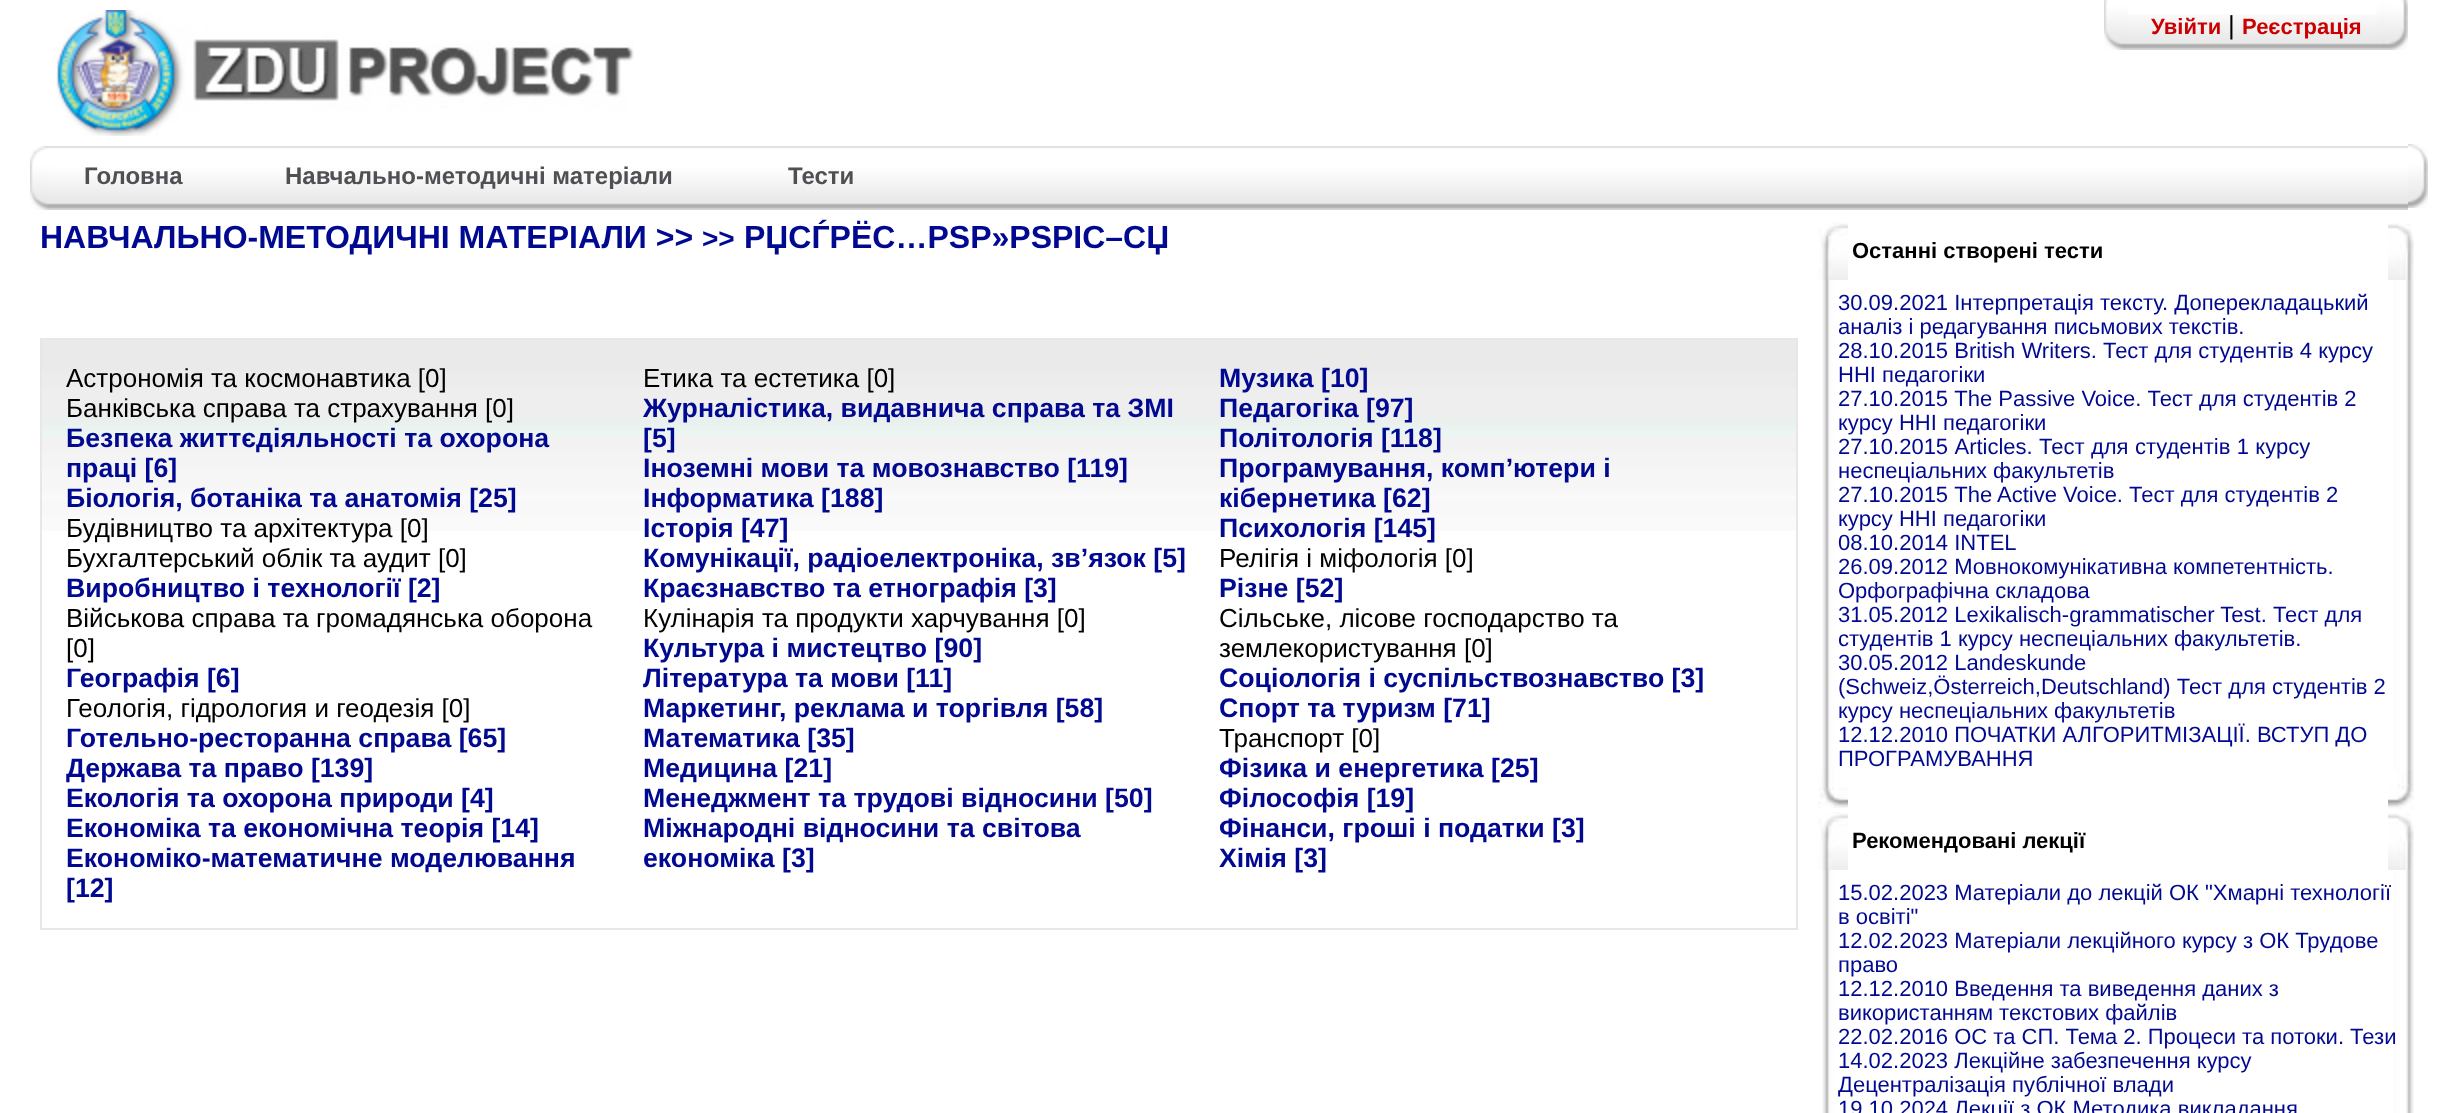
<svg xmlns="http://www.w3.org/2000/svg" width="2457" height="1113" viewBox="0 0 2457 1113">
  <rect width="100%" height="100%" fill="rgb(255,255,255)"/>
  <image x="56" y="10" width="578" height="126" href="pic1.png"/>
  <image x="2128" y="14" width="248" height="36" href="pic2.png"/>
  <image x="2104" y="0" width="24" height="50" href="pic3.png"/>
  <text x="2151" y="34" font-family="Liberation Sans" font-size="22" font-weight="bold" fill="rgb(204,0,0)">Увійти</text>
  <text x="2228" y="34" font-family="Liberation Sans" font-size="26" fill="rgb(0,0,0)">|</text>
  <text x="2242" y="34" font-family="Liberation Sans" font-size="22" font-weight="bold" fill="rgb(204,0,0)">Реєстрація</text>
  <image x="2376" y="0" width="32" height="50" href="pic4.png"/>
  <image x="50" y="146" width="2358" height="64" href="pic5.png"/>
  <image x="30" y="146" width="20" height="64" href="pic6.png"/>
  <g font-family="Liberation Sans" font-size="24" font-weight="bold" fill="rgb(78,80,83)">
    <text x="84" y="184">Головна</text>
    <text x="285" y="184">Навчально-методичні матеріали</text>
    <text x="788" y="184">Тести</text>
  </g>
  <image x="2408" y="144" width="20" height="64" href="pic7.png"/>
  <text x="40" y="248" font-family="Liberation Sans" font-size="32" font-weight="bold" fill="rgb(0,9,144)">НАВЧАЛЬНО-МЕТОДИЧНІ МАТЕРІАЛИ &gt;&gt;</text>
  <text x="702" y="248" font-family="Liberation Sans" font-size="28" font-weight="bold" fill="rgb(0,9,144)">&gt;&gt;</text>
  <text x="744" y="248" font-family="Liberation Sans" font-size="32" font-weight="bold" fill="rgb(0,9,144)">РЏСЃРЁС…РЅР»РЅРІС–СЏ</text>
  <image x="42" y="340" width="1754" height="191" href="pic8.png"/>
  <rect x="41" y="339" width="1756" height="590" fill="none" stroke="rgb(231,231,231)" stroke-width="2"/>
  <g font-family="Liberation Sans" font-size="26" fill="rgb(0,0,0)">
    <text>
      <tspan x="66" y="387">Астрономія та космонавтика [0]</tspan>
      <tspan x="66" y="417">Банківська справа та страхування [0]</tspan>
    </text>
  </g>
  <g font-family="Liberation Sans" font-size="26.7" font-weight="bold" fill="rgb(0,9,144)">
    <text>
      <tspan x="66" y="447">Безпека життєдіяльності та охорона</tspan>
      <tspan x="66" y="477">праці [6]</tspan>
      <tspan x="66" y="507">Біологія, ботаніка та анатомія [25]</tspan>
    </text>
  </g>
  <g font-family="Liberation Sans" font-size="26" fill="rgb(0,0,0)">
    <text>
      <tspan x="66" y="537">Будівництво та архітектура [0]</tspan>
      <tspan x="66" y="567">Бухгалтерський облік та аудит [0]</tspan>
    </text>
  </g>
  <text x="66" y="597" font-family="Liberation Sans" font-size="26.7" font-weight="bold" fill="rgb(0,9,144)">Виробництво і технології [2]</text>
  <g font-family="Liberation Sans" font-size="26" fill="rgb(0,0,0)">
    <text>
      <tspan x="66" y="627">Військова справа та громадянська оборона</tspan>
      <tspan x="66" y="657">[0]</tspan>
    </text>
  </g>
  <text x="66" y="687" font-family="Liberation Sans" font-size="26.7" font-weight="bold" fill="rgb(0,9,144)">Географія [6]</text>
  <text x="66" y="717" font-family="Liberation Sans" font-size="26" fill="rgb(0,0,0)">Геологія, гідрология и геодезія [0]</text>
  <g font-family="Liberation Sans" font-size="26.7" font-weight="bold" fill="rgb(0,9,144)">
    <text>
      <tspan x="66" y="747">Готельно-ресторанна справа [65]</tspan>
      <tspan x="66" y="777">Держава та право [139]</tspan>
      <tspan x="66" y="807">Екологія та охорона природи [4]</tspan>
      <tspan x="66" y="837">Економіка та економічна теорія [14]</tspan>
      <tspan x="66" y="867">Економіко-математичне моделювання</tspan>
      <tspan x="66" y="897">[12]</tspan>
    </text>
  </g>
  <text x="643" y="387" font-family="Liberation Sans" font-size="26" fill="rgb(0,0,0)">Етика та естетика [0]</text>
  <g font-family="Liberation Sans" font-size="26.7" font-weight="bold" fill="rgb(0,9,144)">
    <text>
      <tspan x="643" y="417">Журналістика, видавнича справа та ЗМІ</tspan>
      <tspan x="643" y="447">[5]</tspan>
      <tspan x="643" y="477">Іноземні мови та мовознавство [119]</tspan>
      <tspan x="643" y="507">Інформатика [188]</tspan>
      <tspan x="643" y="537">Історія [47]</tspan>
      <tspan x="643" y="567">Комунікації, радіоелектроніка, зв’язок [5]</tspan>
      <tspan x="643" y="597">Краєзнавство та етнографія [3]</tspan>
    </text>
  </g>
  <text x="643" y="627" font-family="Liberation Sans" font-size="26" fill="rgb(0,0,0)">Кулінарія та продукти харчування [0]</text>
  <g font-family="Liberation Sans" font-size="26.7" font-weight="bold" fill="rgb(0,9,144)">
    <text>
      <tspan x="643" y="657">Культура і мистецтво [90]</tspan>
      <tspan x="643" y="687">Література та мови [11]</tspan>
      <tspan x="643" y="717">Маркетинг, реклама и торгівля [58]</tspan>
      <tspan x="643" y="747">Математика [35]</tspan>
      <tspan x="643" y="777">Медицина [21]</tspan>
      <tspan x="643" y="807">Менеджмент та трудові відносини [50]</tspan>
      <tspan x="643" y="837">Міжнародні відносини та світова</tspan>
      <tspan x="643" y="867">економіка [3]</tspan>
    </text>
    <text>
      <tspan x="1219" y="387">Музика [10]</tspan>
      <tspan x="1219" y="417">Педагогіка [97]</tspan>
      <tspan x="1219" y="447">Політологія [118]</tspan>
      <tspan x="1219" y="477">Програмування, комп’ютери і</tspan>
      <tspan x="1219" y="507">кібернетика [62]</tspan>
      <tspan x="1219" y="537">Психологія [145]</tspan>
    </text>
  </g>
  <text x="1219" y="567" font-family="Liberation Sans" font-size="26" fill="rgb(0,0,0)">Релігія і міфологія [0]</text>
  <text x="1219" y="597" font-family="Liberation Sans" font-size="26.7" font-weight="bold" fill="rgb(0,9,144)">Різне [52]</text>
  <g font-family="Liberation Sans" font-size="26" fill="rgb(0,0,0)">
    <text>
      <tspan x="1219" y="627">Сільське, лісове господарство та</tspan>
      <tspan x="1219" y="657">землекористування [0]</tspan>
    </text>
  </g>
  <g font-family="Liberation Sans" font-size="26.7" font-weight="bold" fill="rgb(0,9,144)">
    <text>
      <tspan x="1219" y="687">Соціологія і суспільствознавство [3]</tspan>
      <tspan x="1219" y="717">Спорт та туризм [71]</tspan>
    </text>
  </g>
  <text x="1219" y="747" font-family="Liberation Sans" font-size="26" fill="rgb(0,0,0)">Транспорт [0]</text>
  <g font-family="Liberation Sans" font-size="26.7" font-weight="bold" fill="rgb(0,9,144)">
    <text>
      <tspan x="1219" y="777">Фізика и енергетика [25]</tspan>
      <tspan x="1219" y="807">Філософія [19]</tspan>
      <tspan x="1219" y="837">Фінанси, гроші і податки [3]</tspan>
      <tspan x="1219" y="867">Хімія [3]</tspan>
    </text>
  </g>
  <image x="1818" y="222" width="30" height="58" href="pic9.png"/>
  <text x="1852" y="258" font-family="Liberation Sans" font-size="22" font-weight="bold" fill="rgb(0,0,0)">Останні створені тести</text>
  <image x="2388" y="223" width="26" height="57" href="pic10.png"/>
  <image x="1822" y="280" width="592" height="490" href="pic11.png"/>
  <g font-family="Liberation Sans" font-size="22" fill="rgb(0,9,144)">
    <text>
      <tspan x="1838" y="310">30.09.2021 Інтерпретація тексту. Доперекладацький</tspan>
      <tspan x="1838" y="334">аналіз і редагування письмових текстів.</tspan>
      <tspan x="1838" y="358">28.10.2015 British Writers. Тест для студентів 4 курсу</tspan>
      <tspan x="1838" y="382">ННІ педагогіки</tspan>
      <tspan x="1838" y="406">27.10.2015 The Passive Voice. Тест для студентів 2</tspan>
      <tspan x="1838" y="430">курсу ННІ педагогіки</tspan>
      <tspan x="1838" y="454" word-spacing="0.25">27.10.2015 Articles. Тест для студентів 1 курсу</tspan>
      <tspan x="1838" y="478">неспеціальних факультетів</tspan>
      <tspan x="1838" y="502">27.10.2015 The Active Voice. Тест для студентів 2</tspan>
      <tspan x="1838" y="526">курсу ННІ педагогіки</tspan>
      <tspan x="1838" y="550">08.10.2014 INTEL</tspan>
      <tspan x="1838" y="574">26.09.2012 Мовнокомунікативна компетентність.</tspan>
      <tspan x="1838" y="598">Орфографічна складова</tspan>
      <tspan x="1838" y="622">31.05.2012 Lexikalisch-grammatischer Test. Тест для</tspan>
      <tspan x="1838" y="646">студентів 1 курсу неспеціальних факультетів.</tspan>
      <tspan x="1838" y="670">30.05.2012 Landeskunde</tspan>
      <tspan x="1838" y="694">(Schweiz,Österreich,Deutschland) Тест для студентів 2</tspan>
      <tspan x="1838" y="718">курсу неспеціальних факультетів</tspan>
      <tspan x="1838" y="742">12.12.2010 ПОЧАТКИ АЛГОРИТМІЗАЦІЇ. ВСТУП ДО</tspan>
      <tspan x="1838" y="766">ПРОГРАМУВАННЯ</tspan>
    </text>
  </g>
  <image x="1818" y="770" width="30" height="38" href="pic12.png"/>
  <image x="2388" y="770" width="26" height="40" href="pic13.png"/>
  <image x="1818" y="812" width="30" height="58" href="pic9.png"/>
  <text x="1852" y="848" font-family="Liberation Sans" font-size="22" font-weight="bold" fill="rgb(0,0,0)">Рекомендовані лекції</text>
  <image x="2388" y="813" width="26" height="57" href="pic10.png"/>
  <image x="1822" y="870" width="592" height="243" href="pic14.png"/>
  <g font-family="Liberation Sans" font-size="22" fill="rgb(0,9,144)">
    <text>
      <tspan x="1838" y="900">15.02.2023 Матеріали до лекцій ОК "Хмарні технології</tspan>
      <tspan x="1838" y="924">в освіті"</tspan>
      <tspan x="1838" y="948">12.02.2023 Матеріали лекційного курсу з ОК Трудове</tspan>
      <tspan x="1838" y="972">право</tspan>
      <tspan x="1838" y="996">12.12.2010 Введення та виведення даних з</tspan>
      <tspan x="1838" y="1020">використанням текстових файлів</tspan>
      <tspan x="1838" y="1044">22.02.2016 ОС та СП. Тема 2. Процеси та потоки. Тези</tspan>
      <tspan x="1838" y="1068">14.02.2023 Лекційне забезпечення курсу</tspan>
      <tspan x="1838" y="1092">Децентралізація публічної влади</tspan>
      <tspan x="1838" y="1116">19.10.2024 Лекції з ОК Методика викладання</tspan>
    </text>
  </g>
</svg>
